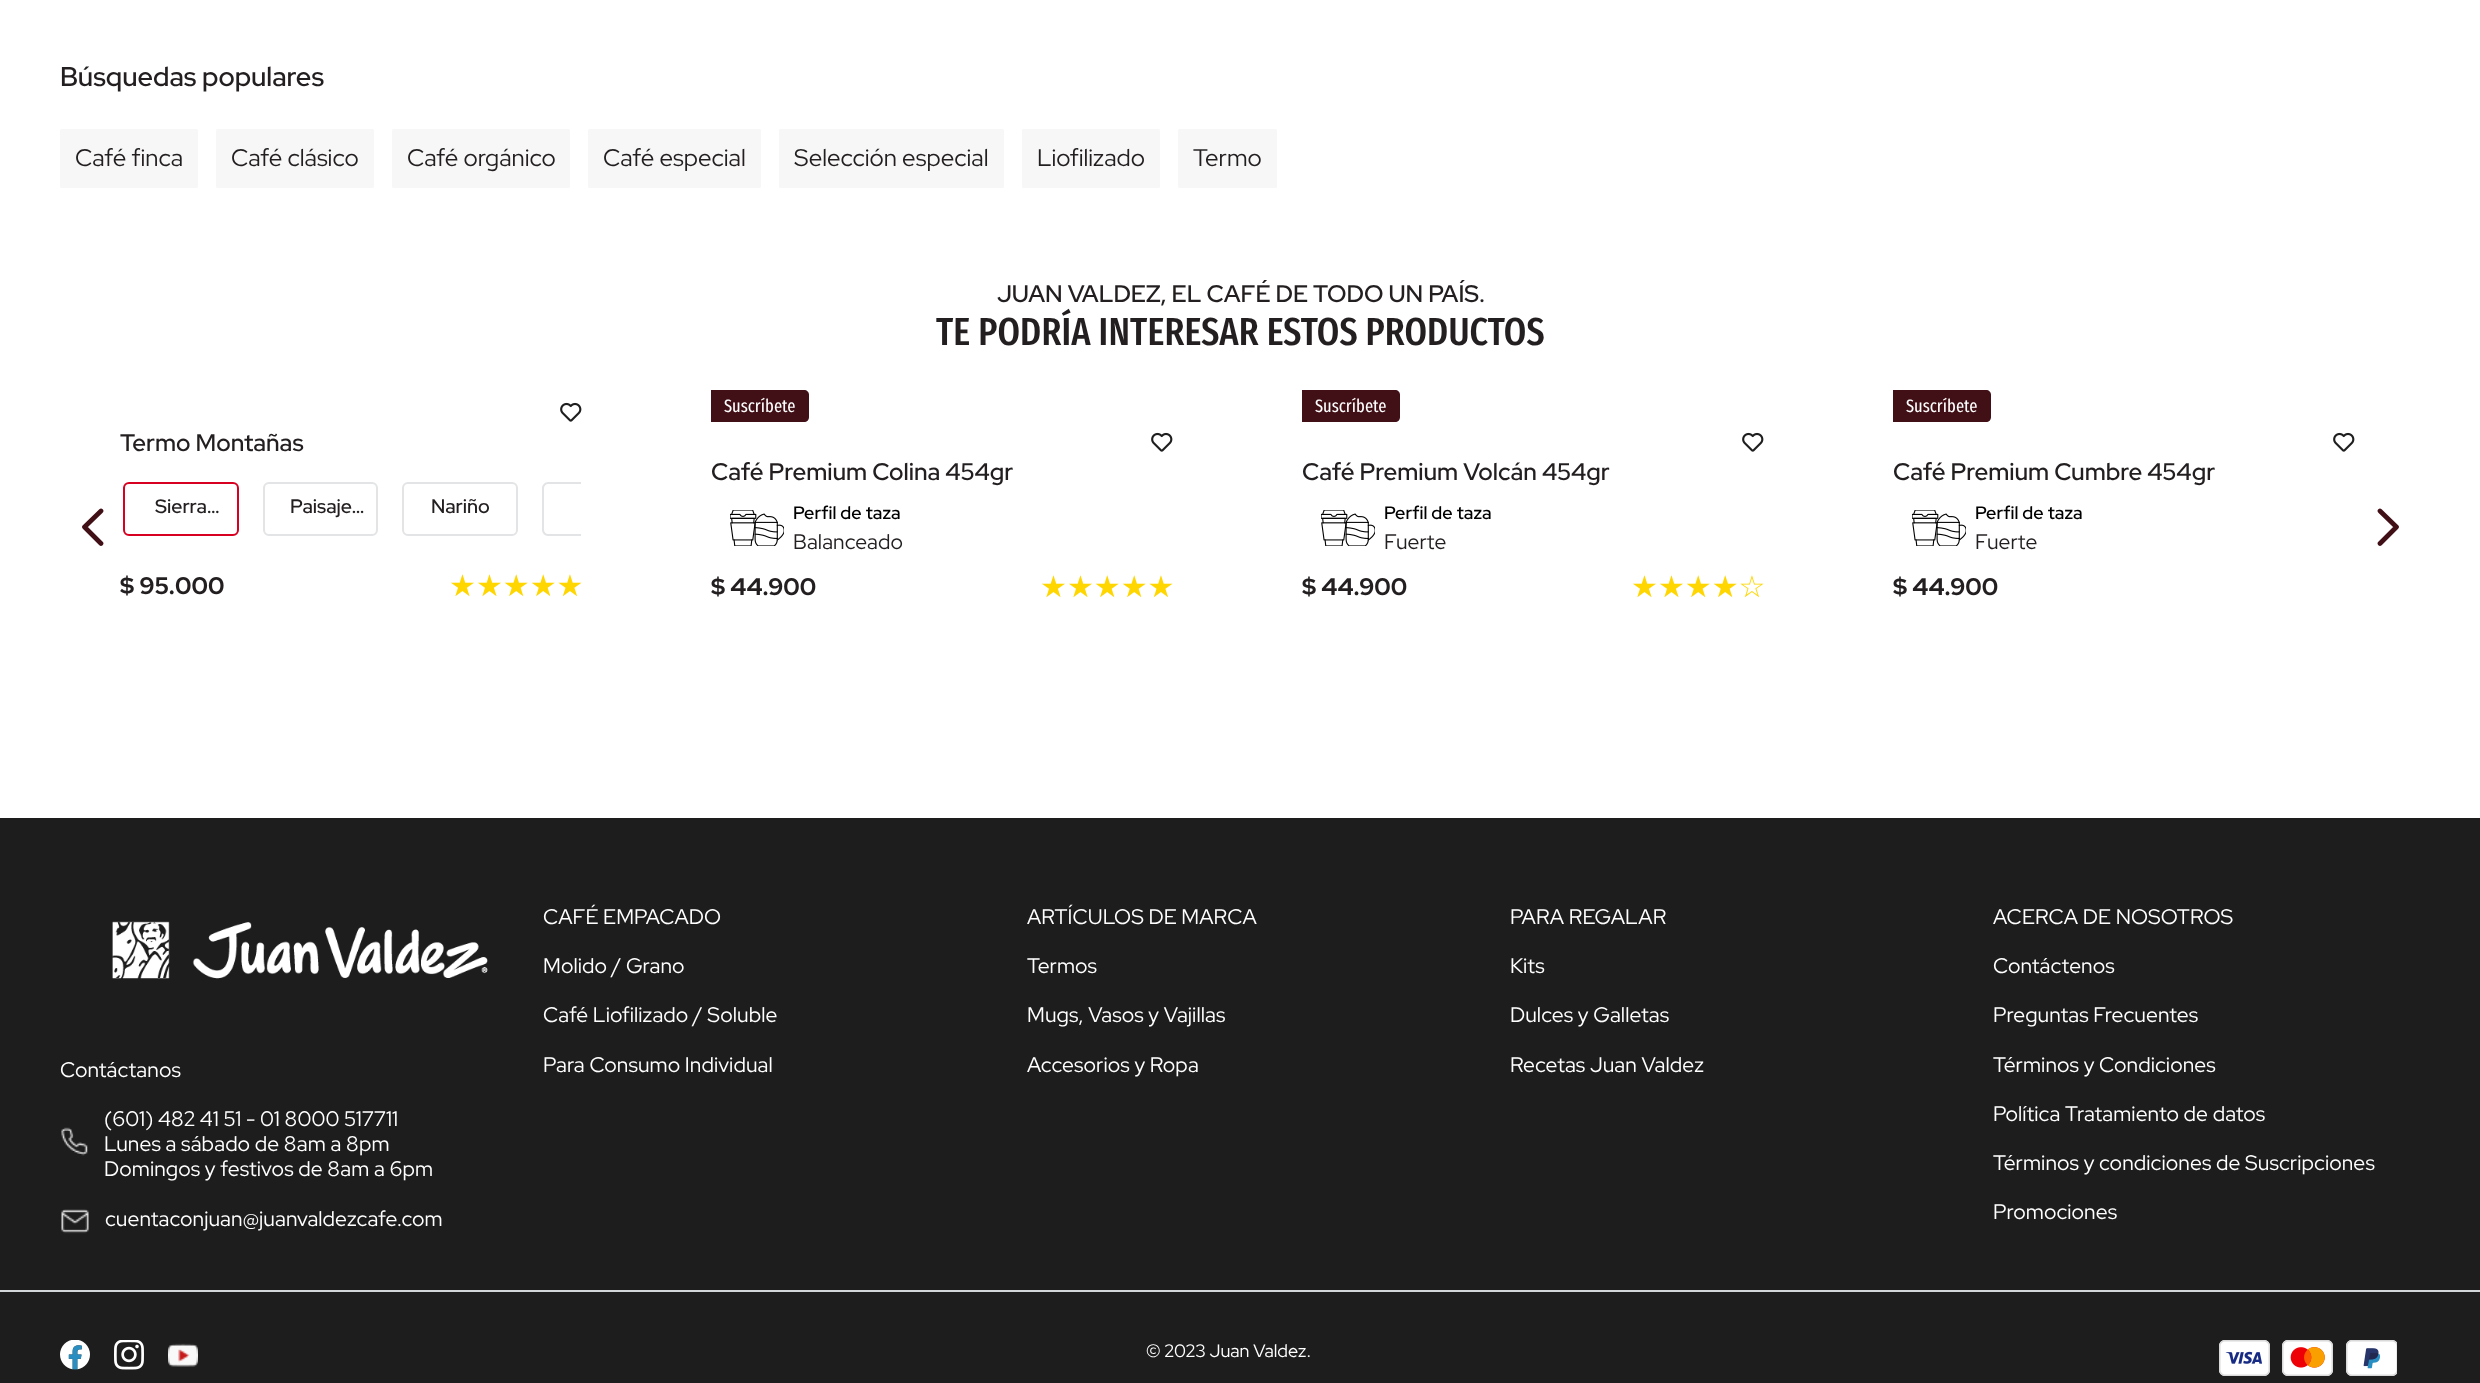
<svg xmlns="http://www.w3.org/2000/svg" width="2480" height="1383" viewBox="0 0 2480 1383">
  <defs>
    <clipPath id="clip1"><rect x="123" y="464" width="458" height="90"/></clipPath>
  </defs>
  <rect width="100%" height="100%" fill="rgb(255,255,255)"/>
  <text x="60" y="86" font-family="Red Hat Display" font-size="27" font-weight="500" fill="rgb(35,31,32)">Búsquedas populares</text>
  <rect x="60" y="129" width="138" height="59" rx="1.5" fill="rgb(247,247,247)"/>
  <text x="75" y="166" font-family="Red Hat Display" font-size="24" fill="rgb(35,31,32)">Café finca</text>
  <rect x="216" y="129" width="158" height="59" rx="1.5" fill="rgb(247,247,247)"/>
  <text x="231" y="166" font-family="Red Hat Display" font-size="24" fill="rgb(35,31,32)">Café clásico</text>
  <rect x="392" y="129" width="178" height="59" rx="1.5" fill="rgb(247,247,247)"/>
  <text x="407" y="166" font-family="Red Hat Display" font-size="24" fill="rgb(35,31,32)">Café orgánico</text>
  <rect x="588" y="129" width="173" height="59" rx="1.5" fill="rgb(247,247,247)"/>
  <text x="603" y="166" font-family="Red Hat Display" font-size="24" fill="rgb(35,31,32)">Café especial</text>
  <rect x="779" y="129" width="225" height="59" rx="1.5" fill="rgb(247,247,247)"/>
  <text x="794" y="166" font-family="Red Hat Display" font-size="24" fill="rgb(35,31,32)">Selección especial</text>
  <rect x="1022" y="129" width="138" height="59" rx="1.5" fill="rgb(247,247,247)"/>
  <text x="1037" y="166" font-family="Red Hat Display" font-size="24" fill="rgb(35,31,32)">Liofilizado</text>
  <rect x="1178" y="129" width="99" height="59" rx="1.5" fill="rgb(247,247,247)"/>
  <text x="1193" y="166" font-family="Red Hat Display" font-size="24" fill="rgb(35,31,32)">Termo</text>
  <text x="997" y="302" font-family="Red Hat Display" font-size="24" font-weight="500" fill="rgb(35,31,32)">JUAN VALDEZ, EL CAFÉ DE TODO UN PAÍS.</text>
  <text x="936" y="345" font-family="Fira Sans Extra Condensed" font-size="39" font-weight="500" letter-spacing="0.15" fill="rgb(35,31,32)">TE PODRÍA INTERESAR ESTOS PRODUCTOS</text>
  <path d="M101 511L84.5 527L101 543.5" fill="none" stroke="rgb(65,16,22)" stroke-width="4.7" stroke-linecap="round" stroke-linejoin="round"/>
  <image x="560" y="402" width="22" height="20" href="pic1.png"/>
  <text x="120" y="451" font-family="Red Hat Display" font-size="24" font-weight="500" fill="rgb(35,31,32)">Termo Montañas</text>
  <rect x="124" y="483" width="114" height="52" rx="5" fill="none" stroke="rgb(215,0,33)" stroke-width="2"/>
  <text x="155" y="513" font-family="Red Hat Display" font-size="19.5" font-weight="500" fill="rgb(35,31,32)">Sierra…</text>
  <rect x="264" y="483" width="113" height="52" rx="5" fill="none" stroke="rgb(227,228,230)" stroke-width="2"/>
  <text x="290" y="513" font-family="Red Hat Display" font-size="19.5" font-weight="500" fill="rgb(35,31,32)">Paisaje…</text>
  <rect x="403" y="483" width="114" height="52" rx="5" fill="none" stroke="rgb(227,228,230)" stroke-width="2"/>
  <text x="431" y="513" font-family="Red Hat Display" font-size="19.5" font-weight="500" fill="rgb(35,31,32)">Nariño</text>
  <g clip-path="url(#clip1)">
    <path d="M548 482C545 482 542 485 542 488V530C542 533 545 536 548 536H584V534H548C546 534 544 532 544 530V488C544 486 546 484 548 484H584V482Z" fill="rgb(227,228,230)"/>
  </g>
  <g font-family="Red Hat Display" font-size="24" font-weight="bold" fill="rgb(35,31,32)">
    <text x="120" y="594">$ 95.</text>
    <text x="175" y="594">000</text>
  </g>
  <text x="449" y="596" font-family="DejaVu Sans" font-size="30" fill="rgb(255,214,0)">★★★★★</text>
  <path d="M711 390H804C807 390 809 392 809 395V417C809 420 807 422 804 422H711Z" fill="rgb(65,16,22)"/>
  <text x="724" y="412" font-family="Fira Sans Extra Condensed" font-size="18" fill="rgb(255,255,255)">Suscríbete</text>
  <image x="1151" y="432" width="22" height="20" href="pic1.png"/>
  <text x="711" y="480" font-family="Red Hat Display" font-size="24" font-weight="500" fill="rgb(35,31,32)">Café Premium Colina 454gr</text>
  <image x="730" y="510" width="54" height="36" href="pic2.png"/>
  <text x="793" y="519" font-family="Red Hat Display" font-size="18" font-weight="600" letter-spacing="0.1" fill="rgb(0,0,0)">Perfil de taza</text>
  <text x="793" y="549" font-family="Red Hat Display" font-size="21" letter-spacing="0.1" fill="rgb(35,31,32)">Balanceado</text>
  <g font-family="Red Hat Display" font-size="24" font-weight="bold" fill="rgb(35,31,32)">
    <text x="711" y="595">$ 44.</text>
    <text x="768" y="595">900</text>
  </g>
  <text x="1040" y="597" font-family="DejaVu Sans" font-size="30" fill="rgb(255,214,0)">★★★★★</text>
  <path d="M1302 390H1395C1398 390 1400 392 1400 395V417C1400 420 1398 422 1395 422H1302Z" fill="rgb(65,16,22)"/>
  <text x="1315" y="412" font-family="Fira Sans Extra Condensed" font-size="18" fill="rgb(255,255,255)">Suscríbete</text>
  <image x="1742" y="432" width="22" height="20" href="pic1.png"/>
  <text x="1302" y="480" font-family="Red Hat Display" font-size="24" font-weight="500" fill="rgb(35,31,32)">Café Premium Volcán 454gr</text>
  <image x="1321" y="510" width="54" height="36" href="pic2.png"/>
  <text x="1384" y="519" font-family="Red Hat Display" font-size="18" font-weight="600" letter-spacing="0.1" fill="rgb(0,0,0)">Perfil de taza</text>
  <text x="1384" y="549" font-family="Red Hat Display" font-size="21" letter-spacing="0.1" fill="rgb(35,31,32)">Fuerte</text>
  <g font-family="Red Hat Display" font-size="24" font-weight="bold" fill="rgb(35,31,32)">
    <text x="1302" y="595">$ 44.</text>
    <text x="1359" y="595">900</text>
  </g>
  <text x="1631" y="597" font-family="DejaVu Sans" font-size="30" fill="rgb(255,214,0)">★★★★☆</text>
  <path d="M1893 390H1986C1989 390 1991 392 1991 395V417C1991 420 1989 422 1986 422H1893Z" fill="rgb(65,16,22)"/>
  <text x="1906" y="412" font-family="Fira Sans Extra Condensed" font-size="18" fill="rgb(255,255,255)">Suscríbete</text>
  <image x="2333" y="432" width="22" height="20" href="pic1.png"/>
  <text x="1893" y="480" font-family="Red Hat Display" font-size="24" font-weight="500" fill="rgb(35,31,32)">Café Premium Cumbre 454gr</text>
  <image x="1912" y="510" width="54" height="36" href="pic2.png"/>
  <text x="1975" y="519" font-family="Red Hat Display" font-size="18" font-weight="600" letter-spacing="0.1" fill="rgb(0,0,0)">Perfil de taza</text>
  <text x="1975" y="549" font-family="Red Hat Display" font-size="21" letter-spacing="0.1" fill="rgb(35,31,32)">Fuerte</text>
  <g font-family="Red Hat Display" font-size="24" font-weight="bold" fill="rgb(35,31,32)">
    <text x="1893" y="595">$ 44.</text>
    <text x="1950" y="595">900</text>
  </g>
  <path d="M2380 543.5L2396.5 527L2380 511" fill="none" stroke="rgb(65,16,22)" stroke-width="4.7" stroke-linecap="round" stroke-linejoin="round"/>
  <rect x="0" y="818" width="2480" height="565" fill="rgb(29,29,29)"/>
  <image x="112" y="921" width="376" height="58" href="pic3.png"/>
  <text x="60" y="1077" font-family="Red Hat Display" font-size="21" letter-spacing="0.1" fill="rgb(255,255,255)">Contáctanos</text>
  <image x="61" y="1127" width="27" height="29" href="pic4.png"/>
  <g font-family="Red Hat Display" font-size="21" letter-spacing="0.1" fill="rgb(255,255,255)">
    <text>
      <tspan x="104" y="1126">(601) 482 41 51 - 01 8000 517711</tspan>
      <tspan x="104" y="1151">Lunes a sábado de 8am a 8pm</tspan>
      <tspan x="104" y="1176">Domingos y festivos de 8am a 6pm</tspan>
    </text>
  </g>
  <image x="61" y="1209" width="28" height="25" href="pic5.png"/>
  <g font-family="Red Hat Display" font-size="21" letter-spacing="0.1" fill="rgb(255,255,255)">
    <text x="105" y="1226">cuentaconjuan@juanvaldezcafe.com</text>
    <text x="543" y="924">CAFÉ EMPACADO</text>
    <text x="543" y="973">Molido / Grano</text>
    <text x="543" y="1022">Café Liofilizado / Soluble</text>
    <text x="543" y="1072">Para Consumo Individual</text>
    <text x="1027" y="924">ARTÍCULOS DE MARCA</text>
    <text x="1027" y="973">Termos</text>
    <text x="1027" y="1022">Mugs, Vasos y Vajillas</text>
    <text x="1027" y="1072">Accesorios y Ropa</text>
    <text x="1510" y="924">PARA REGALAR</text>
    <text x="1510" y="973">Kits</text>
    <text x="1510" y="1022">Dulces y Galletas</text>
    <text x="1510" y="1072">Recetas Juan Valdez</text>
    <text x="1993" y="924">ACERCA DE NOSOTROS</text>
    <text x="1993" y="973">Contáctenos</text>
    <text x="1993" y="1022">Preguntas Frecuentes</text>
    <text x="1993" y="1072">Términos y Condiciones</text>
    <text x="1993" y="1121">Política Tratamiento de datos</text>
    <text x="1993" y="1170">Términos y condiciones de Suscripciones</text>
    <text x="1993" y="1219">Promociones</text>
  </g>
  <rect x="0" y="1290" width="2480" height="2" fill="rgb(211,214,217)"/>
  <image x="60" y="1340" width="30" height="30" href="pic6.png"/>
  <image x="114" y="1340" width="30" height="30" href="pic7.png"/>
  <image x="168" y="1343" width="30" height="24" href="pic8.png"/>
  <text x="1146" y="1357" font-family="Red Hat Display" font-size="18" fill="rgb(255,255,255)">© 2023 Juan Valdez.</text>
  <image x="2219" y="1340" width="51" height="36" href="pic9.png"/>
  <image x="2282" y="1340" width="51" height="36" href="pic10.png"/>
  <image x="2346" y="1340" width="51" height="36" href="pic11.png"/>
</svg>
